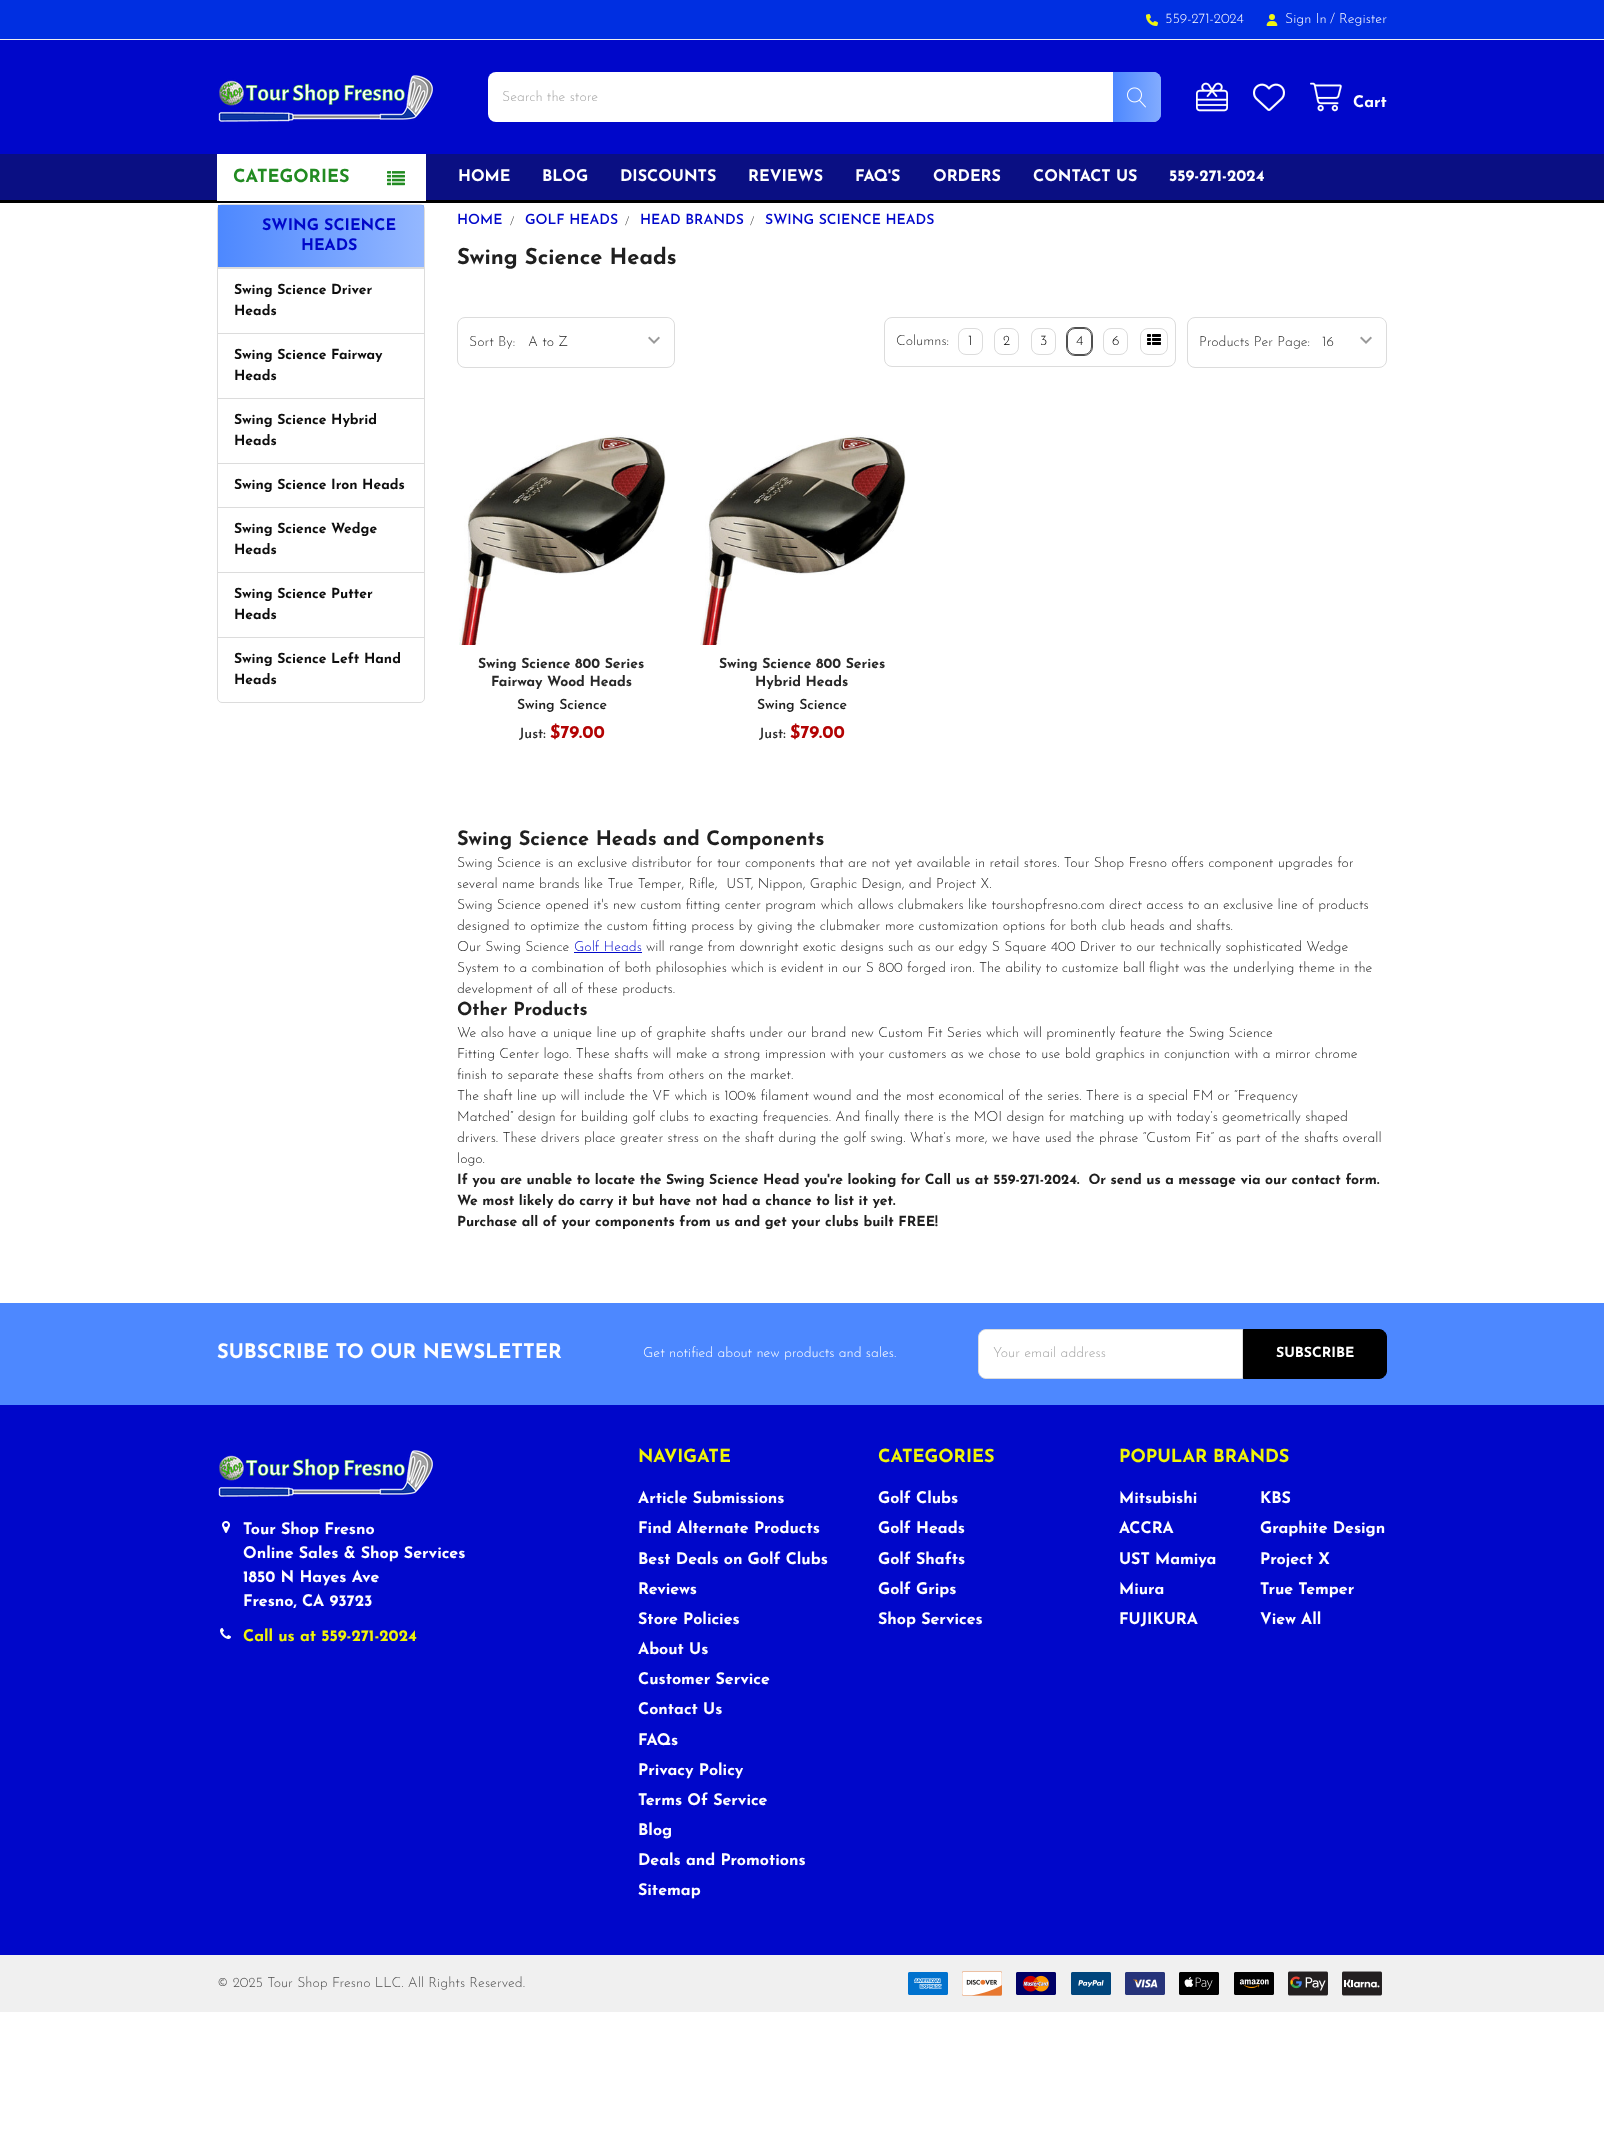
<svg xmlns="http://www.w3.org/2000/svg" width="1604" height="2148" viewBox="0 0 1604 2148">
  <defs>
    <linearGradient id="g1" gradientUnits="userSpaceOnUse" x1="1113" y1="97" x2="1161" y2="97"><stop offset="0" stop-color="rgb(77,136,255)"/><stop offset="1" stop-color="rgb(77,136,255)" stop-opacity="0.7"/></linearGradient>
    <linearGradient id="g2" gradientUnits="userSpaceOnUse" x1="218" y1="236" x2="424" y2="236"><stop offset="0" stop-color="rgb(77,136,255)"/><stop offset="1" stop-color="rgb(77,136,255)" stop-opacity="0.6"/></linearGradient>
    <clipPath id="clip1"><rect x="458" y="318" width="216" height="49" rx="7"/></clipPath>
    <clipPath id="clip2"><rect x="1188" y="318" width="198" height="49" rx="7"/></clipPath>
  </defs>
  <rect width="100%" height="100%" fill="rgb(255,255,255)"/>
  <rect x="0" y="40" width="1604" height="114" fill="rgb(0,7,202)"/>
  <rect x="0" y="0" width="1604" height="39" fill="rgb(0,47,225)"/>
  <rect x="0" y="39" width="1604" height="1" fill="rgb(240,240,240)"/>
  <image x="1146" y="14" width="12" height="12" href="pic1.png"/>
  <text x="1165" y="23" font-family="Josefin Sans" font-size="14" font-weight="300" fill="rgb(255,255,255)">559-271-2024</text>
  <image x="1266" y="14" width="12" height="12" href="pic2.png"/>
  <g font-family="Josefin Sans" font-size="14" font-weight="300" fill="rgb(255,255,255)">
    <text x="1285" y="23">Sign In</text>
    <text x="1330" y="23">/</text>
    <text x="1339" y="23">Register</text>
  </g>
  <image x="218" y="75" width="215" height="47" href="pic3.png"/>
  <rect x="488" y="72" width="673" height="50" rx="8" fill="rgb(255,255,255)"/>
  <text x="502" y="101" font-family="Josefin Sans" font-size="14" font-weight="300" fill="rgb(165,165,165)">Search the store</text>
  <path d="M1113 72H1153C1157.5 72 1161 75.5 1161 80V114C1161 118.5 1157.5 122 1153 122H1113Z" fill="url(#g1)"/>
  <image x="1127" y="87" width="19" height="21" href="pic4.png"/>
  <image x="1196" y="82" width="32" height="30" href="pic5.png"/>
  <image x="1253" y="83" width="32" height="28" href="pic6.png"/>
  <image x="1310" y="82" width="32" height="30" href="pic7.png"/>
  <text x="1353" y="107" font-family="Josefin Sans" font-size="16" font-weight="bold" fill="rgb(255,255,255)">Cart</text>
  <rect x="0" y="154" width="1604" height="46" fill="rgb(10,15,131)"/>
  <rect x="0" y="200" width="1604" height="3" fill="rgb(0,0,0)"/>
  <rect x="217" y="154" width="209" height="6" fill="rgb(255,255,255)"/>
  <path d="M222 155H421C424 155 426 157 426 160V201H217V160C217 157 219 155 222 155Z" fill="rgb(255,255,255)"/>
  <text x="233" y="182" font-family="Josefin Sans" font-size="18" font-weight="bold" fill="rgb(34,139,34)">CATEGORIES</text>
  <image x="387" y="171" width="18" height="15" href="pic8.png"/>
  <g font-family="Josefin Sans" font-size="16" font-weight="bold" fill="rgb(255,255,255)">
    <text x="458" y="181">HOME</text>
    <text x="542" y="181">BLOG</text>
    <text x="620" y="181">DISCOUNTS</text>
    <text x="748" y="181">REVIEWS</text>
    <text x="855" y="181">FAQ'S</text>
    <text x="933" y="181">ORDERS</text>
    <text x="1033" y="181">CONTACT US</text>
    <text x="1169" y="181">559-271-2024</text>
  </g>
  <rect x="217.5" y="204.5" width="207" height="498" rx="4.5" fill="none" stroke="rgb(220,220,220)"/>
  <rect x="218" y="205" width="206" height="62" fill="url(#g2)"/>
  <g font-family="Josefin Sans" font-size="16" font-weight="bold" fill="rgb(0,7,202)">
    <text x="262" y="230">SWING SCIENCE</text>
    <text x="301" y="250">HEADS</text>
  </g>
  <rect x="218" y="267" width="206" height="2" fill="rgb(220,220,220)"/>
  <g font-family="Josefin Sans" font-size="14" font-weight="bold" fill="rgb(14,14,14)">
    <text>
      <tspan x="234" y="294">Swing Science Driver</tspan>
      <tspan x="234" y="315">Heads</tspan>
    </text>
  </g>
  <rect x="218" y="333" width="206" height="1" fill="rgb(220,220,220)"/>
  <g font-family="Josefin Sans" font-size="14" font-weight="bold" fill="rgb(14,14,14)">
    <text>
      <tspan x="234" y="359">Swing Science Fairway</tspan>
      <tspan x="234" y="380">Heads</tspan>
    </text>
  </g>
  <rect x="218" y="398" width="206" height="1" fill="rgb(220,220,220)"/>
  <g font-family="Josefin Sans" font-size="14" font-weight="bold" fill="rgb(14,14,14)">
    <text>
      <tspan x="234" y="424">Swing Science Hybrid</tspan>
      <tspan x="234" y="445">Heads</tspan>
    </text>
  </g>
  <rect x="218" y="463" width="206" height="1" fill="rgb(220,220,220)"/>
  <text x="234" y="489" font-family="Josefin Sans" font-size="14" font-weight="bold" fill="rgb(14,14,14)">Swing Science Iron Heads</text>
  <rect x="218" y="507" width="206" height="1" fill="rgb(220,220,220)"/>
  <g font-family="Josefin Sans" font-size="14" font-weight="bold" fill="rgb(14,14,14)">
    <text>
      <tspan x="234" y="533">Swing Science Wedge</tspan>
      <tspan x="234" y="554">Heads</tspan>
    </text>
  </g>
  <rect x="218" y="572" width="206" height="1" fill="rgb(220,220,220)"/>
  <g font-family="Josefin Sans" font-size="14" font-weight="bold" fill="rgb(14,14,14)">
    <text>
      <tspan x="234" y="598">Swing Science Putter</tspan>
      <tspan x="234" y="619">Heads</tspan>
    </text>
  </g>
  <rect x="218" y="637" width="206" height="1" fill="rgb(220,220,220)"/>
  <g font-family="Josefin Sans" font-size="14" font-weight="bold" fill="rgb(14,14,14)">
    <text>
      <tspan x="234" y="663">Swing Science Left Hand</tspan>
      <tspan x="234" y="684">Heads</tspan>
    </text>
  </g>
  <text x="457" y="224" font-family="Josefin Sans" font-size="14" font-weight="600" fill="rgb(0,7,202)">HOME</text>
  <text x="510" y="225" font-family="Josefin Sans" font-size="12" font-weight="300" fill="rgb(46,46,46)">/</text>
  <text x="525" y="224" font-family="Josefin Sans" font-size="14" font-weight="600" fill="rgb(0,7,202)">GOLF HEADS</text>
  <text x="625" y="225" font-family="Josefin Sans" font-size="12" font-weight="300" fill="rgb(46,46,46)">/</text>
  <text x="640" y="224" font-family="Josefin Sans" font-size="14" font-weight="600" fill="rgb(0,7,202)">HEAD BRANDS</text>
  <text x="750" y="225" font-family="Josefin Sans" font-size="12" font-weight="300" fill="rgb(46,46,46)">/</text>
  <text x="765" y="224" font-family="Josefin Sans" font-size="14" font-weight="600" fill="rgb(0,7,202)">SWING SCIENCE HEADS</text>
  <text x="457" y="264" font-family="Josefin Sans" font-size="22" font-weight="bold" fill="rgb(32,32,32)">Swing Science Heads</text>
  <rect x="457.5" y="317.5" width="217" height="50" rx="7.5" fill="none" stroke="rgb(220,220,220)"/>
  <text x="469" y="346" font-family="Josefin Sans" font-size="14" font-weight="300" fill="rgb(46,46,46)">Sort By:</text>
  <g clip-path="url(#clip1)">
    <rect x="525" y="318" width="149" height="48" rx="8" fill="rgb(255,255,255)"/>
  </g>
  <image x="648" y="336" width="12" height="8" href="pic9.png"/>
  <text x="528" y="346" font-family="Josefin Sans" font-size="14" font-weight="300" fill="rgb(32,32,32)">A to Z</text>
  <rect x="884.5" y="317.5" width="291" height="49" rx="7.5" fill="none" stroke="rgb(220,220,220)"/>
  <text x="896" y="345" font-family="Josefin Sans" font-size="14" font-weight="300" fill="rgb(46,46,46)">Columns:</text>
  <rect x="958.5" y="328.5" width="24" height="26" rx="7.5" fill="none" stroke="rgb(220,220,220)"/>
  <text x="968" y="345" font-family="Josefin Sans" font-size="14" font-weight="300" fill="rgb(0,0,0)">1</text>
  <rect x="994.5" y="328.5" width="24" height="26" rx="7.5" fill="none" stroke="rgb(220,220,220)"/>
  <text x="1003" y="345" font-family="Josefin Sans" font-size="14" font-weight="300" fill="rgb(0,0,0)">2</text>
  <rect x="1031.5" y="328.5" width="24" height="26" rx="7.5" fill="none" stroke="rgb(220,220,220)"/>
  <text x="1040" y="345" font-family="Josefin Sans" font-size="14" font-weight="300" fill="rgb(0,0,0)">3</text>
  <rect x="1066.5" y="327.5" width="26" height="28" rx="8.5" fill="none" stroke="rgb(79,79,79)"/>
  <rect x="1067.5" y="328.5" width="24" height="26" rx="7.5" fill="none" stroke="rgb(79,79,79)"/>
  <text x="1076" y="345" font-family="Josefin Sans" font-size="14" font-weight="300" fill="rgb(0,0,0)">4</text>
  <rect x="1103.5" y="328.5" width="24" height="26" rx="7.5" fill="none" stroke="rgb(220,220,220)"/>
  <text x="1112" y="345" font-family="Josefin Sans" font-size="14" font-weight="300" fill="rgb(0,0,0)">6</text>
  <rect x="1140.5" y="328.5" width="27" height="26" rx="7.5" fill="none" stroke="rgb(220,220,220)"/>
  <image x="1147" y="334" width="14" height="11" href="pic10.png"/>
  <rect x="1187.5" y="317.5" width="199" height="50" rx="7.5" fill="none" stroke="rgb(220,220,220)"/>
  <text x="1199" y="346" font-family="Josefin Sans" font-size="14" font-weight="300" fill="rgb(46,46,46)">Products Per Page:</text>
  <g clip-path="url(#clip2)">
    <rect x="1319" y="318" width="67" height="48" rx="8" fill="rgb(255,255,255)"/>
  </g>
  <image x="1360" y="336" width="12" height="8" href="pic9.png"/>
  <text x="1322" y="346" font-family="Josefin Sans" font-size="14" font-weight="300" fill="rgb(32,32,32)">16</text>
  <image x="459" y="435" width="207" height="210" href="pic11.png"/>
  <g font-family="Josefin Sans" font-size="14" font-weight="bold" fill="rgb(40,40,40)">
    <text x="478" y="668">Swing Science 800 Series</text>
    <text x="491" y="686">Fairway Wood Heads</text>
  </g>
  <text x="517" y="709" font-family="Josefin Sans" font-size="14" font-weight="600" fill="rgb(32,32,32)">Swing Science</text>
  <text x="519" y="738" font-family="Josefin Sans" font-size="14" font-weight="600" fill="rgb(46,46,46)">Just:</text>
  <text x="550" y="738" font-family="Josefin Sans" font-size="18" font-weight="bold" fill="rgb(179,3,3)">$79.00</text>
  <image x="700" y="435" width="206" height="210" href="pic12.png"/>
  <g font-family="Josefin Sans" font-size="14" font-weight="bold" fill="rgb(40,40,40)">
    <text x="719" y="668">Swing Science 800 Series</text>
    <text x="755" y="686">Hybrid Heads</text>
  </g>
  <text x="757" y="709" font-family="Josefin Sans" font-size="14" font-weight="600" fill="rgb(32,32,32)">Swing Science</text>
  <text x="759" y="738" font-family="Josefin Sans" font-size="14" font-weight="600" fill="rgb(46,46,46)">Just:</text>
  <text x="790" y="738" font-family="Josefin Sans" font-size="18" font-weight="bold" fill="rgb(179,3,3)">$79.00</text>
  <text x="457" y="845" font-family="Josefin Sans" font-size="20" font-weight="bold" fill="rgb(32,32,32)">Swing Science Heads and Components</text>
  <g font-family="Josefin Sans" font-size="14" font-weight="300" fill="rgb(32,32,32)">
    <text xml:space="preserve"><tspan x="457" y="867">Swing Science is an exclusive distributor for tour components that are not yet available in retail stores. Tour Shop Fresno offers component upgrades for</tspan><tspan x="457" y="888">several name brands like True Temper, Rifle,  UST, Nippon, Graphic Design, and Project X.</tspan><tspan x="457" y="909">Swing Science opened it's new custom fitting center program which allows clubmakers like tourshopfresno.com direct access to an exclusive line of products</tspan><tspan x="457" y="930">designed to optimize the custom fitting process by giving the clubmaker more customization options for both club heads and shafts.</tspan><tspan x="457" y="951">Our Swing Science</tspan></text>
  </g>
  <text x="574" y="951" font-family="Josefin Sans" font-size="14" font-weight="300" fill="rgb(0,7,202)">Golf Heads</text>
  <rect x="574" y="952" width="68" height="1" fill="rgb(0,7,202)"/>
  <g font-family="Josefin Sans" font-size="14" font-weight="300" fill="rgb(32,32,32)">
    <text x="646" y="951">will range from downright exotic designs such as our edgy S Square 400 Driver to our technically sophisticated Wedge</text>
    <text>
      <tspan x="457" y="972">System to a combination of both philosophies which is evident in our S 800 forged iron. The ability to customize ball flight was the underlying theme in the</tspan>
      <tspan x="457" y="993">development of all of these products.</tspan>
    </text>
  </g>
  <text x="457" y="1015" font-family="Josefin Sans" font-size="18" font-weight="bold" fill="rgb(32,32,32)">Other Products</text>
  <g font-family="Josefin Sans" font-size="14" font-weight="300" fill="rgb(32,32,32)">
    <text>
      <tspan x="457" y="1037">We also have a unique line up of graphite shafts under our brand new Custom Fit Series which will prominently feature the Swing Science</tspan>
      <tspan x="457" y="1058">Fitting Center logo. These shafts will make a strong impression with your customers as we chose to use bold graphics in conjunction with a mirror chrome</tspan>
      <tspan x="457" y="1079">finish to separate these shafts from others on the market.</tspan>
      <tspan x="457" y="1100">The shaft line up will include the VF which is 100% filament wound and the most economical of the series. There is a special FM or “Frequency</tspan>
      <tspan x="457" y="1121">Matched” design for building golf clubs to exacting frequencies. And finally there is the MOI design for matching up with today’s geometrically shaped</tspan>
      <tspan x="457" y="1142">drivers. These drivers place greater stress on the shaft during the golf swing. What’s more, we have used the phrase “Custom Fit” as part of the shafts overall</tspan>
      <tspan x="457" y="1163">logo.</tspan>
    </text>
  </g>
  <g font-family="Josefin Sans" font-size="14" font-weight="bold" fill="rgb(32,32,32)">
    <text xml:space="preserve"><tspan x="457" y="1184">If you are unable to locate the Swing Science Head you're looking for Call us at 559-271-2024.  Or send us a message via our contact form.</tspan><tspan x="457" y="1205">We most likely do carry it but have not had a chance to list it yet.</tspan><tspan x="457" y="1226">Purchase all of your components from us and get your clubs built FREE!</tspan></text>
  </g>
  <rect x="0" y="1405" width="1604" height="550" fill="rgb(0,7,202)"/>
  <rect x="0" y="1303" width="1604" height="102" fill="rgb(77,136,255)"/>
  <text x="217" y="1358" font-family="Josefin Sans" font-size="20" font-weight="bold" fill="rgb(255,255,255)">SUBSCRIBE TO OUR NEWSLETTER</text>
  <text x="643" y="1357" font-family="Josefin Sans" font-size="14" font-weight="300" fill="rgb(255,255,255)">Get notified about new products and sales.</text>
  <path d="M986 1329.5H1242.5V1378.5H986C982 1378.5 978.5 1375 978.5 1371V1337C978.5 1333 982 1329.5 986 1329.5Z" fill="rgb(255,255,255)" stroke="rgb(220,220,220)"/>
  <text x="993" y="1357" font-family="Josefin Sans" font-size="14" font-weight="300" fill="rgb(165,165,165)">Your email address</text>
  <path d="M1243.5 1329.5H1379C1383 1329.5 1386.5 1333 1386.5 1337V1371C1386.5 1375 1383 1378.5 1379 1378.5H1243.5Z" fill="rgb(0,0,0)" stroke="rgb(0,0,0)"/>
  <text x="1276" y="1357" font-family="Josefin Sans" font-size="14" font-weight="bold" fill="rgb(255,255,255)">SUBSCRIBE</text>
  <image x="218" y="1450" width="215" height="47" href="pic3.png"/>
  <image x="222" y="1521" width="8" height="12" href="pic13.png"/>
  <g font-family="Josefin Sans" font-size="16" font-weight="bold" fill="rgb(255,255,255)">
    <text>
      <tspan x="243" y="1534">Tour Shop Fresno</tspan>
      <tspan x="243" y="1558">Online Sales &amp; Shop Services</tspan>
      <tspan x="243" y="1582">1850 N Hayes Ave</tspan>
      <tspan x="243" y="1606">Fresno, CA 93723</tspan>
    </text>
  </g>
  <image x="220" y="1628" width="11" height="11" href="pic14.png"/>
  <text x="243" y="1641" font-family="Josefin Sans" font-size="16" font-weight="bold" fill="rgb(240,245,8)">Call us at 559-271-2024</text>
  <text x="638" y="1462" font-family="Josefin Sans" font-size="18" font-weight="bold" fill="rgb(240,245,8)">NAVIGATE</text>
  <g font-family="Josefin Sans" font-size="16" font-weight="bold" fill="rgb(255,255,255)">
    <text>
      <tspan x="638" y="1503">Article Submissions</tspan>
      <tspan x="638" y="1533">Find Alternate Products</tspan>
      <tspan x="638" y="1564">Best Deals on Golf Clubs</tspan>
      <tspan x="638" y="1594">Reviews</tspan>
      <tspan x="638" y="1624">Store Policies</tspan>
      <tspan x="638" y="1654">About Us</tspan>
      <tspan x="638" y="1684">Customer Service</tspan>
      <tspan x="638" y="1714">Contact Us</tspan>
      <tspan x="638" y="1745">FAQs</tspan>
      <tspan x="638" y="1775">Privacy Policy</tspan>
      <tspan x="638" y="1805">Terms Of Service</tspan>
      <tspan x="638" y="1835">Blog</tspan>
      <tspan x="638" y="1865">Deals and Promotions</tspan>
      <tspan x="638" y="1895">Sitemap</tspan>
    </text>
  </g>
  <text x="878" y="1462" font-family="Josefin Sans" font-size="18" font-weight="bold" fill="rgb(240,245,8)">CATEGORIES</text>
  <g font-family="Josefin Sans" font-size="16" font-weight="bold" fill="rgb(255,255,255)">
    <text>
      <tspan x="878" y="1503">Golf Clubs</tspan>
      <tspan x="878" y="1533">Golf Heads</tspan>
      <tspan x="878" y="1564">Golf Shafts</tspan>
      <tspan x="878" y="1594">Golf Grips</tspan>
      <tspan x="878" y="1624">Shop Services</tspan>
    </text>
  </g>
  <text x="1119" y="1462" font-family="Josefin Sans" font-size="18" font-weight="bold" fill="rgb(240,245,8)">POPULAR BRANDS</text>
  <g font-family="Josefin Sans" font-size="16" font-weight="bold" fill="rgb(255,255,255)">
    <text x="1119" y="1503">Mitsubishi</text>
    <text x="1260" y="1503">KBS</text>
    <text x="1119" y="1533">ACCRA</text>
    <text x="1260" y="1533">Graphite Design</text>
    <text x="1119" y="1564">UST Mamiya</text>
    <text x="1260" y="1564">Project X</text>
    <text x="1119" y="1594">Miura</text>
    <text x="1260" y="1594">True Temper</text>
    <text x="1119" y="1624">FUJIKURA</text>
    <text x="1260" y="1624">View All</text>
  </g>
  <rect x="0" y="1955" width="1604" height="57" fill="rgb(240,240,240)"/>
  <text x="217" y="1987" font-family="Josefin Sans" font-size="14" font-weight="300" fill="rgb(80,80,80)">© 2025 Tour Shop Fresno LLC. All Rights Reserved.</text>
  <image x="908" y="1972" width="40" height="23" href="pic15.png"/>
  <image x="962" y="1971" width="40" height="25" href="pic16.png"/>
  <image x="1016" y="1972" width="40" height="23" href="pic17.png"/>
  <image x="1071" y="1972" width="40" height="23" href="pic18.png"/>
  <image x="1125" y="1972" width="40" height="23" href="pic19.png"/>
  <image x="1179" y="1972" width="40" height="23" href="pic20.png"/>
  <image x="1234" y="1972" width="40" height="23" href="pic21.png"/>
  <image x="1288" y="1971" width="40" height="25" href="pic22.png"/>
  <image x="1342" y="1971" width="40" height="25" href="pic23.png"/>
</svg>
